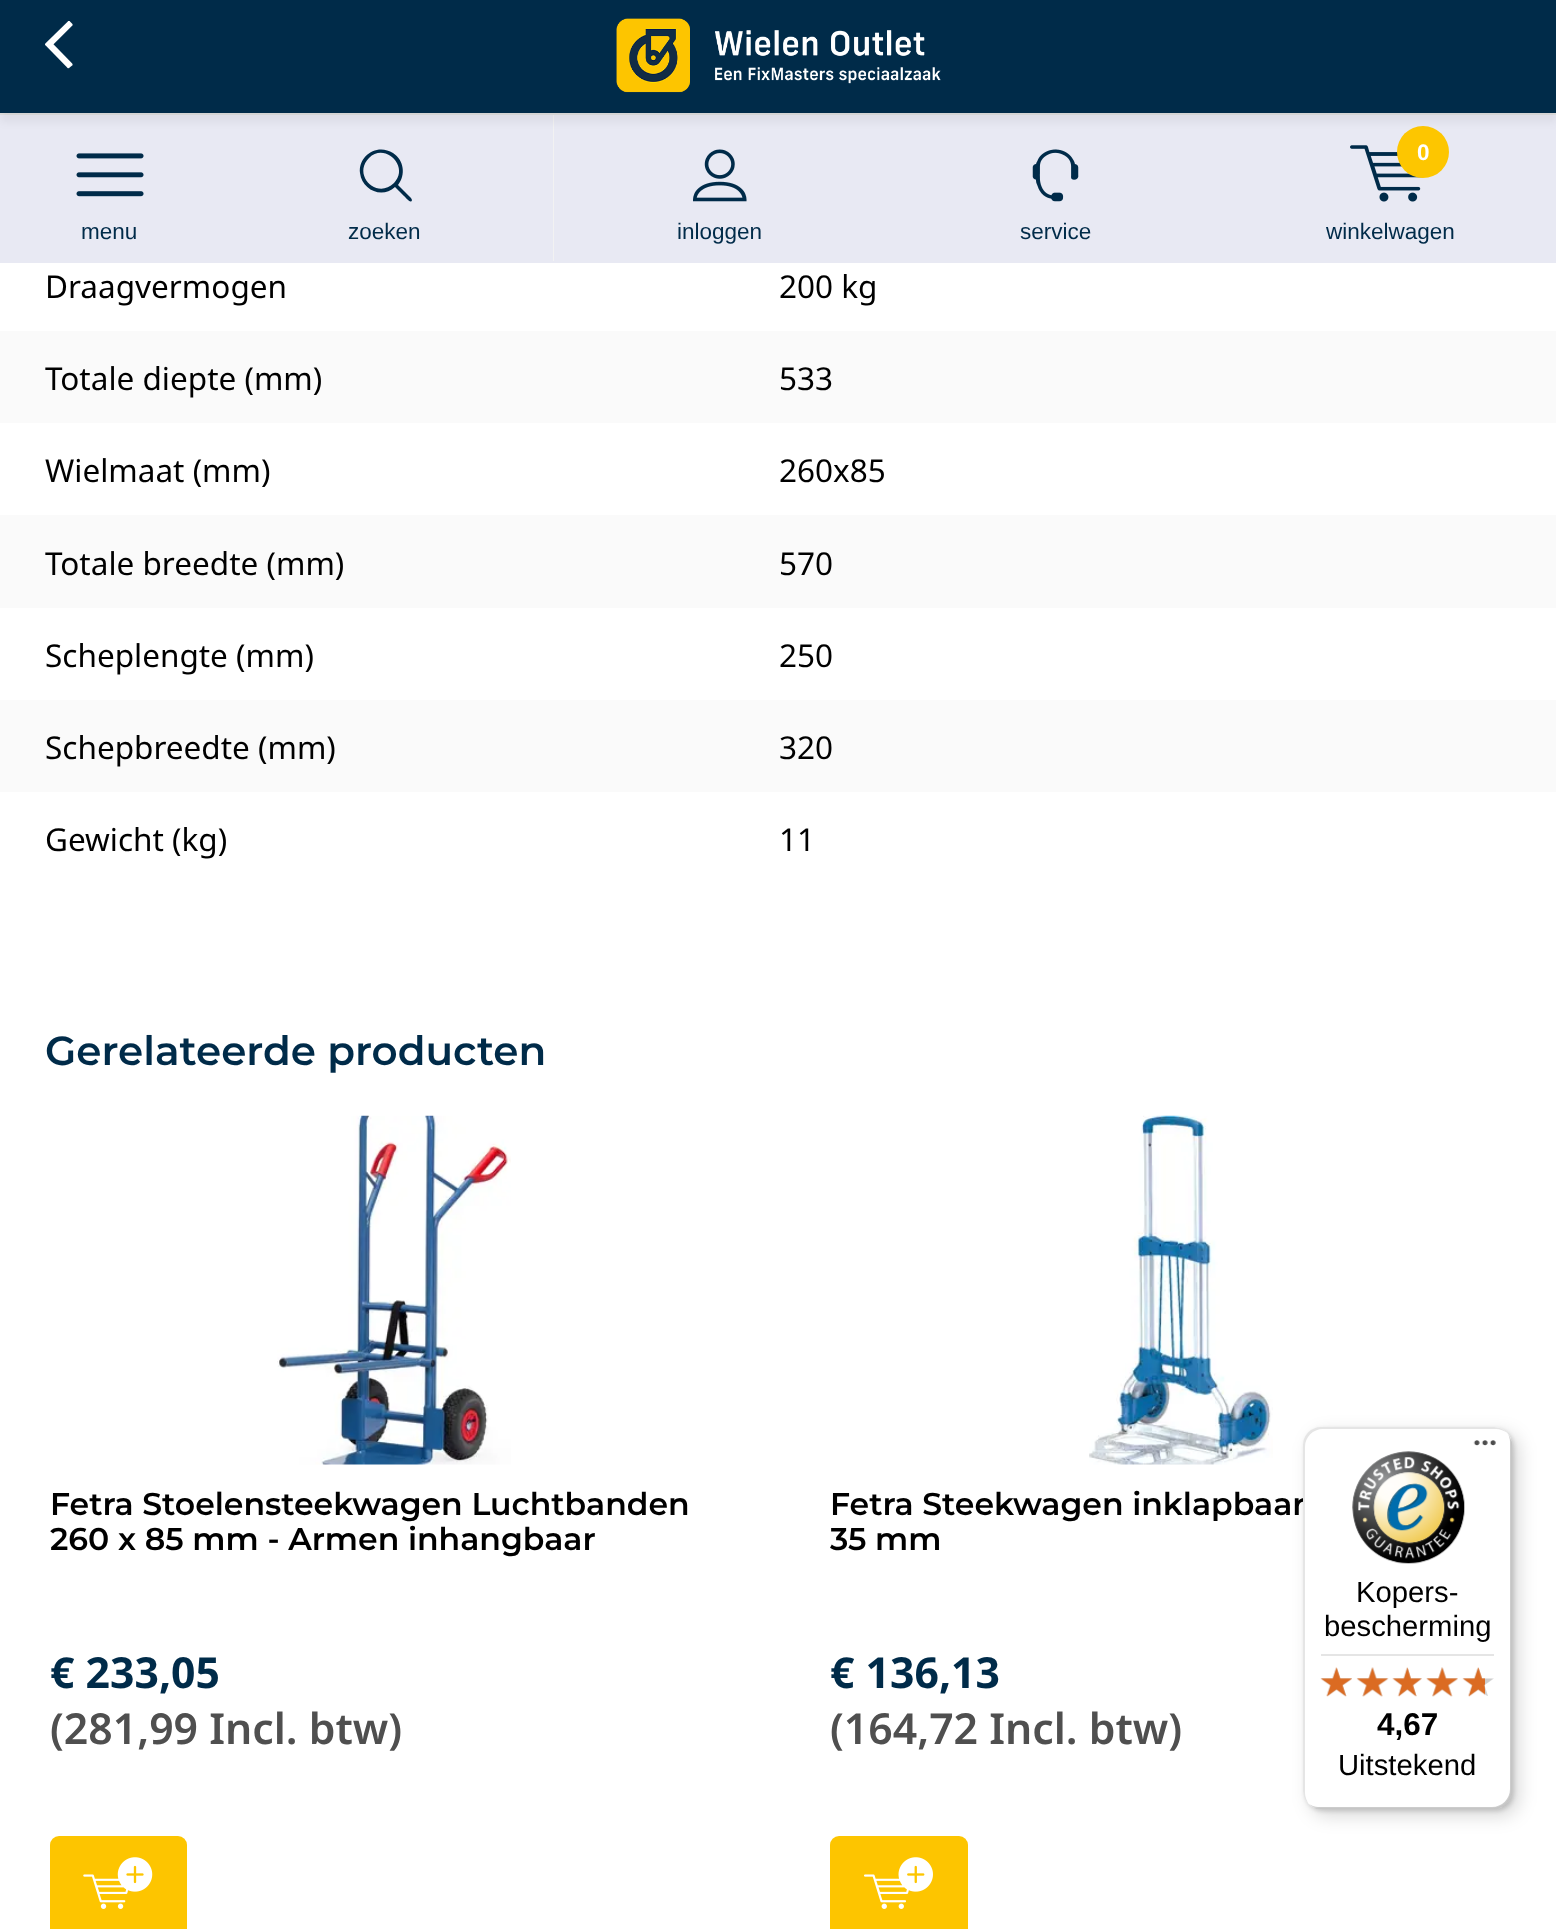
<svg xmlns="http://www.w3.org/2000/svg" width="1556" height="1929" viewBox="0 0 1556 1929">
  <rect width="100%" height="100%" fill="rgb(255,255,255)"/>
  <rect x="553" y="115" width="1" height="146" fill="rgb(242,242,242)"/>
  <rect x="0" y="113" width="1556" height="2" fill="rgb(224,224,224)"/>
  <rect x="2" y="115" width="214" height="146" fill="rgb(232,233,243)"/>
  <rect x="0" y="261" width="1556" height="2" fill="rgb(232,233,243)"/>
  <rect x="0" y="115" width="2" height="148" fill="rgb(232,233,243)"/>
  <rect x="218" y="115" width="333" height="146" fill="rgb(232,233,243)"/>
  <rect x="216" y="115" width="2" height="148" fill="rgb(232,233,243)"/>
  <rect x="554" y="115" width="333" height="146" fill="rgb(232,233,243)"/>
  <rect x="551" y="115" width="2" height="148" fill="rgb(232,233,243)"/>
  <rect x="889" y="115" width="333" height="146" fill="rgb(232,233,243)"/>
  <rect x="887" y="115" width="2" height="148" fill="rgb(232,233,243)"/>
  <rect x="1224" y="115" width="332" height="146" fill="rgb(232,233,243)"/>
  <rect x="1222" y="115" width="2" height="148" fill="rgb(232,233,243)"/>
  <image x="1350" y="145" width="73" height="57" href="pic6.png"/>
  <circle cx="1423" cy="152" r="26" fill="rgb(253,198,0)"/>
  <rect x="0" y="9" width="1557" height="113" fill="rgba(0,0,0,0.05)" filter="blur(4.5px)"/>
  <rect x="0" y="0" width="1556" height="113" fill="rgb(0,43,73)"/>
  <image x="45" y="21" width="28" height="48" href="pic1.png"/>
  <image x="616" y="18" width="325" height="75" href="pic2.png"/>
  <image x="76" y="153" width="68" height="44" href="pic3.png"/>
  <text x="81" y="239" font-family="Liberation Sans" font-size="22.5" fill="rgb(0,43,73)">menu</text>
  <path d="M411 198L398 185C406 175 404 160 393 153C378 143 358 155 360 173C362 190 382 199 395 187L404 196C407 199 411 204 412 200ZM394 183C377 200 352 175 369 158C385 142 410 167 394 183Z" fill="rgb(0,43,73)"/>
  <text x="348" y="239" font-family="Liberation Sans" font-size="22.5" fill="rgb(0,43,73)">zoeken</text>
  <image x="693" y="149" width="54" height="53" href="pic4.png"/>
  <text x="677" y="239" font-family="Liberation Sans" font-size="22.5" fill="rgb(0,43,73)">inloggen</text>
  <image x="1032" y="149" width="47" height="53" href="pic5.png"/>
  <text x="1020" y="239" font-family="Liberation Sans" font-size="22.5" fill="rgb(0,43,73)">service</text>
  <text x="1417" y="160" font-family="Liberation Sans" font-size="22.5" font-weight="bold" fill="rgb(255,255,255)">0</text>
  <text x="1326" y="239" font-family="Liberation Sans" font-size="22.5" fill="rgb(0,43,73)">winkelwagen</text>
  <g font-family="Noto Sans" font-size="31.5" fill="rgb(0,0,0)">
    <text x="45" y="298">Draagvermogen</text>
    <text x="779" y="298">200 kg</text>
  </g>
  <rect x="0" y="331" width="1556" height="92" fill="rgb(250,250,250)"/>
  <g font-family="Noto Sans" font-size="31.5" fill="rgb(0,0,0)">
    <text x="45" y="390">Totale diepte (mm)</text>
    <text x="779" y="390">533</text>
    <text x="45" y="482">Wielmaat (mm)</text>
    <text x="779" y="482">260x85</text>
  </g>
  <rect x="0" y="515" width="1556" height="93" fill="rgb(250,250,250)"/>
  <g font-family="Noto Sans" font-size="31.5" fill="rgb(0,0,0)">
    <text x="45" y="575">Totale breedte (mm)</text>
    <text x="779" y="575">570</text>
    <text x="45" y="667">Scheplengte (mm)</text>
    <text x="779" y="667">250</text>
  </g>
  <rect x="0" y="700" width="1556" height="92" fill="rgb(250,250,250)"/>
  <g font-family="Noto Sans" font-size="31.5" fill="rgb(0,0,0)">
    <text x="45" y="759">Schepbreedte (mm)</text>
    <text x="779" y="759">320</text>
    <text x="45" y="851">Gewicht (kg)</text>
    <text x="779" y="851">11</text>
  </g>
  <text x="45" y="1065" font-family="Montserrat" font-size="40.5" font-weight="600" fill="rgb(0,43,73)">Gerelateerde producten</text>
  <image x="277" y="1115" width="234" height="350" href="pic7.png"/>
  <g font-family="Montserrat" font-size="31.5" font-weight="600" fill="rgb(0,0,0)">
    <text>
      <tspan x="50" y="1515">Fetra Stoelensteekwagen Luchtbanden</tspan>
      <tspan x="50" y="1550">260 x 85 mm - Armen inhangbaar</tspan>
    </text>
  </g>
  <text x="50" y="1688" font-family="Noto Sans" font-size="42.75" font-weight="bold" fill="rgb(0,43,73)">€ 233,05</text>
  <text x="50" y="1744" font-family="Noto Sans" font-size="42.75" font-weight="600" fill="rgb(79,79,79)">(281,99 Incl. btw)</text>
  <rect x="50" y="1836" width="137" height="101" rx="9" fill="rgb(253,197,0)"/>
  <image x="83" y="1857" width="70" height="52" href="pic8.png"/>
  <image x="1089" y="1115" width="184" height="350" href="pic9.png"/>
  <g font-family="Montserrat" font-size="31.5" font-weight="600" fill="rgb(0,0,0)">
    <text>
      <tspan x="830" y="1515">Fetra Steekwagen inklapbaar</tspan>
      <tspan x="830" y="1550">35 mm</tspan>
    </text>
  </g>
  <text x="830" y="1688" font-family="Noto Sans" font-size="42.75" font-weight="bold" fill="rgb(0,43,73)">€ 136,13</text>
  <text x="830" y="1744" font-family="Noto Sans" font-size="42.75" font-weight="600" fill="rgb(79,79,79)">(164,72 Incl. btw)</text>
  <rect x="830" y="1836" width="138" height="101" rx="9" fill="rgb(253,197,0)"/>
  <image x="864" y="1857" width="69" height="52" href="pic10.png"/>
  <rect x="1310" y="1433" width="209" height="383" rx="18" fill="rgba(0,0,0,0.15)" filter="blur(9px)"/>
  <rect x="1305" y="1429" width="209" height="382" rx="18" fill="rgba(0,0,0,0.15)" filter="blur(2px)"/>
  <rect x="1303" y="1427" width="209" height="382" rx="18" fill="rgb(255,255,255)"/>
  <path d="M1323 1429H1496C1500 1429 1504 1431 1508 1433C1504 1429 1499 1427 1494 1427H1321C1311 1427 1303 1435 1303 1445V1791C1303 1796 1305 1801 1309 1805C1307 1801 1305 1797 1305 1793V1447C1305 1437 1313 1429 1323 1429Z" fill="rgb(229,229,229)"/>
  <path d="M1309 1804C1312 1807 1316 1809 1321 1809H1494C1504 1809 1512 1801 1512 1791V1445C1512 1441 1510 1437 1508 1434C1509 1436 1510 1439 1510 1442V1789C1510 1799 1502 1807 1492 1807H1318C1315 1807 1312 1806 1309 1804Z" fill="rgba(0,0,0,0.2)"/>
  <path d="M1312 1807C1315 1808 1318 1809 1321 1809H1494C1504 1809 1512 1801 1512 1791V1445C1512 1442 1511 1439 1510 1436C1511 1438 1511 1441 1511 1443V1790C1511 1800 1503 1808 1493 1808H1319C1317 1808 1314 1808 1312 1807Z" fill="rgba(50,50,50,0.2)"/>
  <path d="M1308 1804C1311 1807 1316 1809 1321 1809H1494C1504 1809 1512 1801 1512 1791V1445C1512 1442 1511 1439 1510 1436C1511 1438 1511 1441 1511 1443V1790C1511 1800 1503 1808 1493 1808H1320C1315 1808 1311 1806 1308 1804Z" fill="rgba(255,255,255,0.3)"/>
  <image x="1473" y="1440" width="23" height="6" href="pic11.png"/>
  <image x="1352" y="1451" width="113" height="113" href="pic12.png"/>
  <g font-family="Liberation Sans" font-size="29.25" fill="rgb(0,0,0)">
    <text x="1356" y="1602">Kopers-</text>
    <text x="1324" y="1636">bescherming</text>
  </g>
  <rect x="1321" y="1654" width="173" height="2" fill="rgb(229,229,229)"/>
  <image x="1321" y="1668" width="31" height="28" href="pic18.png"/>
  <image x="1320" y="1667" width="32" height="30" href="pic13.png"/>
  <image x="1357" y="1667" width="32" height="30" href="pic19.png"/>
  <image x="1356" y="1667" width="33" height="30" href="pic14.png"/>
  <image x="1392" y="1668" width="30" height="28" href="pic20.png"/>
  <image x="1392" y="1667" width="30" height="30" href="pic15.png"/>
  <image x="1427" y="1667" width="31" height="30" href="pic21.png"/>
  <image x="1426" y="1667" width="32" height="30" href="pic16.png"/>
  <image x="1463" y="1668" width="31" height="28" href="pic22.png"/>
  <image x="1462" y="1667" width="23" height="30" href="pic17.png"/>
  <text x="1377" y="1735" font-family="Liberation Sans" font-size="31.5" font-weight="bold" fill="rgb(0,0,0)">4,67</text>
  <text x="1338" y="1775" font-family="Liberation Sans" font-size="29.25" fill="rgb(0,0,0)">Uitstekend</text>
</svg>
